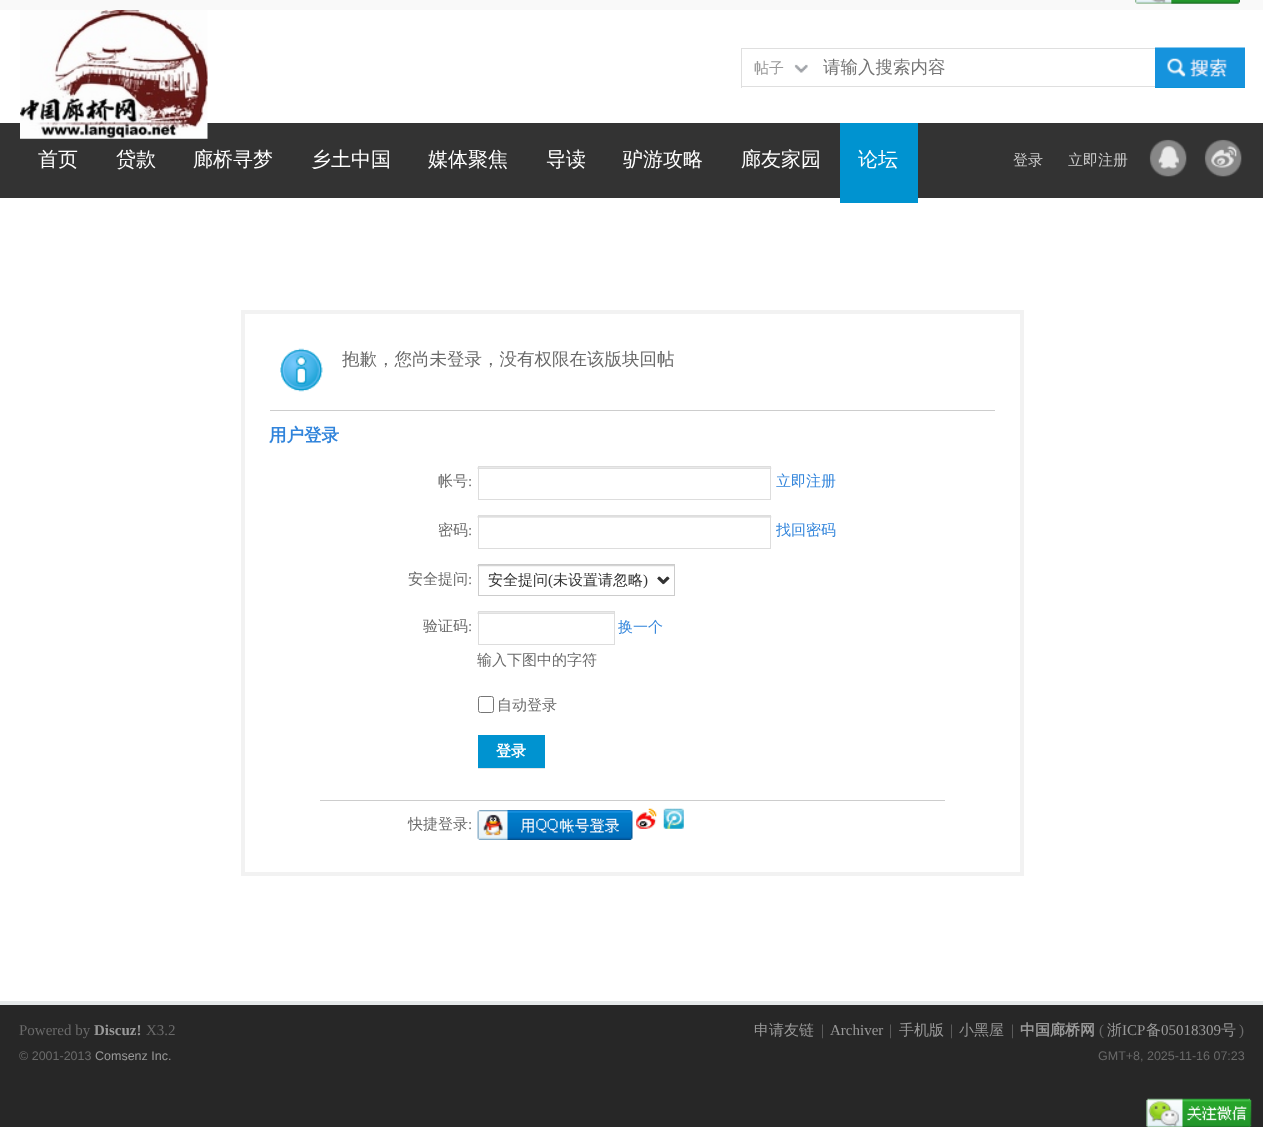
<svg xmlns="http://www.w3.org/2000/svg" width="1263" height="1127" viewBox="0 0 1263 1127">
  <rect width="100%" height="100%" fill="rgb(255,255,255)"/>
  <rect x="0" y="0" width="1263" height="10" fill="rgb(249,249,249)"/>
  <image x="1135" y="0" width="105" height="4" href="pic1.png"/>
  <rect x="0" y="123" width="1263" height="75" fill="rgb(51,51,51)"/>
  <image x="20" y="10" width="188" height="129" href="pic2.png"/>
  <image x="794" y="64" width="14" height="9" href="pic3.png"/>
  <rect x="741" y="48" width="414" height="1" fill="rgb(223,223,223)"/>
  <rect x="741" y="86" width="414" height="1" fill="rgb(223,223,223)"/>
  <rect x="741" y="48" width="1" height="40" fill="rgb(223,223,223)"/>
  <text x="754" y="73" font-family="WenQuanYi Zen Hei" font-size="15" font-weight="500" fill="rgb(153,153,153)">帖子</text>
  <text x="823" y="73" font-family="WenQuanYi Zen Hei" font-size="17.5" font-weight="500" fill="rgb(117,117,117)">请输入搜索内容</text>
  <rect x="1155" y="87" width="90" height="1" fill="rgb(0,147,208)"/>
  <image x="1155" y="47" width="90" height="41" href="pic4.png"/>
  <g font-family="WenQuanYi Zen Hei" font-size="20" font-weight="500" fill="rgb(255,255,255)">
    <text x="38" y="166">首页</text>
    <text x="116" y="166">贷款</text>
    <text x="193" y="166">廊桥寻梦</text>
    <text x="311" y="166">乡土中国</text>
    <text x="428" y="166">媒体聚焦</text>
    <text x="546" y="166">导读</text>
    <text x="623" y="166">驴游攻略</text>
    <text x="741" y="166">廊友家园</text>
  </g>
  <rect x="840" y="123" width="78" height="80" fill="rgb(0,147,208)"/>
  <text x="858" y="166" font-family="WenQuanYi Zen Hei" font-size="20" font-weight="500" fill="rgb(255,255,255)">论坛</text>
  <g font-family="WenQuanYi Zen Hei" font-size="15" font-weight="500" fill="rgb(204,204,204)">
    <text x="1013" y="165">登录</text>
    <text x="1068" y="165">立即注册</text>
  </g>
  <image x="1149" y="139" width="38" height="38" href="pic5.png"/>
  <image x="1204" y="139" width="38" height="38" href="pic6.png"/>
  <rect x="243" y="312" width="779" height="562" fill="none" stroke="rgb(242,242,242)" stroke-width="4"/>
  <image x="280" y="348" width="43" height="44" href="pic7.png"/>
  <text x="342" y="365" font-family="WenQuanYi Zen Hei" font-size="17.5" font-weight="500" fill="rgb(106,106,106)">抱歉，您尚未登录，没有权限在该版块回帖</text>
  <rect x="270" y="410" width="725" height="1" fill="rgb(205,205,205)"/>
  <text x="269" y="441" font-family="WenQuanYi Zen Hei" font-size="17.5" font-weight="bold" fill="rgb(49,132,219)">用户登录</text>
  <text x="438" y="486" font-family="WenQuanYi Zen Hei" font-size="15" font-weight="500" fill="rgb(106,106,106)">帐号</text>
  <text x="468" y="486" font-family="Liberation Serif" font-size="15" fill="rgb(106,106,106)">:</text>
  <image x="477" y="467" width="295" height="2" href="pic8.png"/>
  <rect x="478.5" y="466.5" width="292" height="33" fill="none" stroke="rgb(221,221,221)"/>
  <text x="776" y="486" font-family="WenQuanYi Zen Hei" font-size="15" font-weight="500" fill="rgb(49,132,219)">立即注册</text>
  <text x="438" y="535" font-family="WenQuanYi Zen Hei" font-size="15" font-weight="500" fill="rgb(106,106,106)">密码</text>
  <text x="468" y="535" font-family="Liberation Serif" font-size="15" fill="rgb(106,106,106)">:</text>
  <image x="477" y="516" width="295" height="2" href="pic9.png"/>
  <rect x="478.5" y="515.5" width="292" height="33" fill="none" stroke="rgb(221,221,221)"/>
  <text x="776" y="535" font-family="WenQuanYi Zen Hei" font-size="15" font-weight="500" fill="rgb(49,132,219)">找回密码</text>
  <text x="408" y="584" font-family="WenQuanYi Zen Hei" font-size="15" font-weight="500" fill="rgb(106,106,106)">安全提问</text>
  <text x="468" y="584" font-family="Liberation Serif" font-size="15" fill="rgb(106,106,106)">:</text>
  <image x="477" y="565" width="197" height="20" href="pic10.png"/>
  <rect x="478.5" y="564.5" width="196" height="31" fill="none" stroke="rgb(204,204,204)"/>
  <path d="M658 577.5L663 582.5L668 577.5" fill="none" stroke="rgb(51,51,51)" stroke-width="2.5"/>
  <text x="488" y="585" font-family="WenQuanYi Zen Hei" font-size="15" font-weight="500" fill="rgb(51,51,51)">安全提问</text>
  <text x="548" y="585" font-family="Liberation Serif" font-size="15" fill="rgb(51,51,51)">(</text>
  <text x="553" y="585" font-family="WenQuanYi Zen Hei" font-size="15" font-weight="500" fill="rgb(51,51,51)">未设置请忽略</text>
  <text x="643" y="585" font-family="Liberation Serif" font-size="15" fill="rgb(51,51,51)">)</text>
  <text x="423" y="631" font-family="WenQuanYi Zen Hei" font-size="15" font-weight="500" fill="rgb(106,106,106)">验证码</text>
  <text x="468" y="631" font-family="Liberation Serif" font-size="15" fill="rgb(106,106,106)">:</text>
  <image x="477" y="612" width="137" height="2" href="pic11.png"/>
  <rect x="478.5" y="611.5" width="136" height="33" fill="none" stroke="rgb(221,221,221)"/>
  <text x="618" y="632" font-family="WenQuanYi Zen Hei" font-size="15" font-weight="500" fill="rgb(49,132,219)">换一个</text>
  <text x="477" y="665" font-family="WenQuanYi Zen Hei" font-size="15" font-weight="500" fill="rgb(106,106,106)">输入下图中的字符</text>
  <rect x="478.5" y="696.5" width="15" height="16" rx="2" fill="none" stroke="rgb(118,118,118)"/>
  <text x="497" y="710" font-family="WenQuanYi Zen Hei" font-size="15" font-weight="500" fill="rgb(106,106,106)">自动登录</text>
  <rect x="478" y="768" width="67" height="1" fill="rgb(229,229,229)"/>
  <rect x="478" y="735" width="67" height="33" fill="rgb(0,147,208)"/>
  <text x="496" y="756" font-family="WenQuanYi Zen Hei" font-size="15" font-weight="bold" fill="rgb(255,255,255)">登录</text>
  <rect x="320" y="800" width="625" height="1" fill="rgb(205,205,205)"/>
  <text x="408" y="829" font-family="WenQuanYi Zen Hei" font-size="15" font-weight="500" fill="rgb(106,106,106)">快捷登录</text>
  <text x="468" y="829" font-family="Liberation Serif" font-size="15" fill="rgb(106,106,106)">:</text>
  <image x="477" y="810" width="156" height="30" href="pic12.png"/>
  <image x="636" y="808" width="21" height="21" href="pic13.png"/>
  <image x="663" y="808" width="21" height="21" href="pic14.png"/>
  <rect x="0" y="1005" width="1263" height="122" fill="rgb(39,39,39)"/>
  <rect x="0" y="1001" width="1263" height="4" fill="rgb(230,233,234)"/>
  <text x="19" y="1035" font-family="Liberation Serif" font-size="15" fill="rgb(106,106,106)">Powered by</text>
  <text x="94" y="1035" font-family="Liberation Serif" font-size="15" font-weight="bold" fill="rgb(153,153,153)">Discuz!</text>
  <text x="146" y="1035" font-family="Liberation Serif" font-size="15" fill="rgb(106,106,106)">X3.2</text>
  <text x="19" y="1060" font-family="Liberation Sans" font-size="12.5" fill="rgb(106,106,106)">© 2001-2013</text>
  <text x="95" y="1060" font-family="Liberation Sans" font-size="12.5" fill="rgb(153,153,153)">Comsenz Inc.</text>
  <text x="754" y="1035" font-family="WenQuanYi Zen Hei" font-size="15" font-weight="500" fill="rgb(153,153,153)">申请友链</text>
  <text x="821" y="1035" font-family="Liberation Serif" font-size="15" fill="rgb(106,106,106)">|</text>
  <text x="830" y="1035" font-family="Liberation Serif" font-size="15" fill="rgb(153,153,153)">Archiver</text>
  <text x="889" y="1035" font-family="Liberation Serif" font-size="15" fill="rgb(106,106,106)">|</text>
  <text x="899" y="1035" font-family="WenQuanYi Zen Hei" font-size="15" font-weight="500" fill="rgb(153,153,153)">手机版</text>
  <text x="950" y="1035" font-family="Liberation Serif" font-size="15" fill="rgb(106,106,106)">|</text>
  <text x="959" y="1035" font-family="WenQuanYi Zen Hei" font-size="15" font-weight="500" fill="rgb(153,153,153)">小黑屋</text>
  <text x="1011" y="1035" font-family="Liberation Serif" font-size="15" fill="rgb(106,106,106)">|</text>
  <text x="1020" y="1035" font-family="WenQuanYi Zen Hei" font-size="15" font-weight="bold" fill="rgb(153,153,153)">中国廊桥网</text>
  <text x="1099" y="1035" font-family="Liberation Serif" font-size="15" fill="rgb(106,106,106)">(</text>
  <text x="1107" y="1035" font-family="WenQuanYi Zen Hei" font-size="15" font-weight="500" fill="rgb(153,153,153)">浙</text>
  <text x="1122" y="1035" font-family="Liberation Serif" font-size="15" fill="rgb(153,153,153)">ICP</text>
  <text x="1146" y="1035" font-family="WenQuanYi Zen Hei" font-size="15" font-weight="500" fill="rgb(153,153,153)">备</text>
  <text x="1161" y="1035" font-family="Liberation Serif" font-size="15" fill="rgb(153,153,153)">05018309</text>
  <text x="1221" y="1035" font-family="WenQuanYi Zen Hei" font-size="15" font-weight="500" fill="rgb(153,153,153)">号</text>
  <text x="1239" y="1035" font-family="Liberation Serif" font-size="15" fill="rgb(106,106,106)">)</text>
  <text x="1098" y="1060" font-family="Liberation Sans" font-size="12.5" fill="rgb(106,106,106)">GMT+8, 2025-11-16 07:23</text>
  <image x="1146" y="1098" width="106" height="29" href="pic15.png"/>
</svg>
